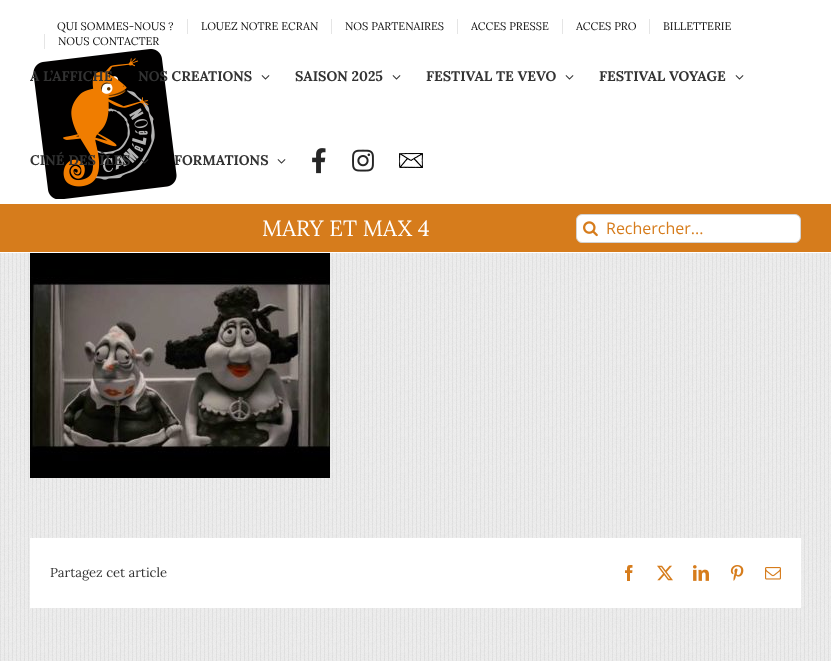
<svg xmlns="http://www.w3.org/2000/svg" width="831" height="661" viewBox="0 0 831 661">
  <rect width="100%" height="100%" fill="rgb(255,255,255)"/>
  <text x="57" y="30" font-family="Lora" font-size="11" fill="rgb(10,10,10)">QUI SOMMES-NOUS ?</text>
  <rect x="187" y="19" width="1" height="15" fill="rgb(229,229,229)"/>
  <text x="201" y="30" font-family="Lora" font-size="11" fill="rgb(10,10,10)">LOUEZ NOTRE ECRAN</text>
  <rect x="331" y="19" width="1" height="15" fill="rgb(229,229,229)"/>
  <text x="345" y="30" font-family="Lora" font-size="11" fill="rgb(10,10,10)">NOS PARTENAIRES</text>
  <rect x="457" y="19" width="1" height="15" fill="rgb(229,229,229)"/>
  <text x="471" y="30" font-family="Lora" font-size="11" fill="rgb(10,10,10)">ACCES PRESSE</text>
  <rect x="562" y="19" width="1" height="15" fill="rgb(229,229,229)"/>
  <text x="576" y="30" font-family="Lora" font-size="11" fill="rgb(10,10,10)">ACCES PRO</text>
  <rect x="649" y="19" width="1" height="15" fill="rgb(229,229,229)"/>
  <text x="663" y="30" font-family="Lora" font-size="11" fill="rgb(10,10,10)">BILLETTERIE</text>
  <rect x="44" y="34" width="1" height="15" fill="rgb(229,229,229)"/>
  <text x="58" y="45" font-family="Lora" font-size="11" fill="rgb(10,10,10)">NOUS CONTACTER</text>
  <image x="33" y="49" width="144" height="150" href="pic1.png"/>
  <g font-family="Lora" font-size="14" font-weight="bold" fill="rgb(51,51,51)">
    <text x="30" y="81">A L’AFFICHE</text>
    <text x="138" y="81">NOS CREATIONS</text>
  </g>
  <image x="261" y="75" width="9" height="5" href="pic2.png"/>
  <text x="295" y="81" font-family="Lora" font-size="14" font-weight="bold" fill="rgb(51,51,51)">SAISON 2025</text>
  <image x="392" y="75" width="9" height="5" href="pic2.png"/>
  <text x="426" y="81" font-family="Lora" font-size="14" font-weight="bold" fill="rgb(51,51,51)">FESTIVAL TE VEVO</text>
  <image x="565" y="75" width="9" height="5" href="pic2.png"/>
  <text x="599" y="81" font-family="Lora" font-size="14" font-weight="bold" fill="rgb(51,51,51)">FESTIVAL VOYAGE</text>
  <image x="735" y="75" width="9" height="5" href="pic2.png"/>
  <text x="30" y="165" font-family="Lora" font-size="14" font-weight="bold" fill="rgb(51,51,51)">CINÉ DES ÎLES</text>
  <image x="140" y="159" width="9" height="5" href="pic3.png"/>
  <text x="174" y="165" font-family="Lora" font-size="14" font-weight="bold" fill="rgb(51,51,51)">FORMATIONS</text>
  <image x="277" y="159" width="9" height="5" href="pic2.png"/>
  <image x="312" y="148" width="14" height="26" href="pic4.png"/>
  <image x="352" y="149" width="22" height="23" href="pic5.png"/>
  <image x="399" y="153" width="24" height="15" href="pic6.png"/>
  <rect x="0" y="204" width="831" height="48" fill="rgb(214,124,28)"/>
  <text x="262" y="236" font-family="Lora" font-size="22" fill="rgb(255,255,255)">MARY ET MAX 4</text>
  <rect x="576.5" y="214.5" width="224" height="28" rx="5.5" fill="rgb(255,255,255)" stroke="rgb(210,210,210)"/>
  <image x="583" y="221" width="15" height="16" href="pic7.png"/>
  <text x="606" y="234" font-family="Open Sans" font-size="16" fill="rgb(214,124,28)">Rechercher...</text>
  <image x="0" y="253" width="831" height="408" href="pic8.png"/>
  <image x="30" y="253" width="300" height="225" href="pic9.png"/>
  <rect x="30" y="538" width="771" height="70" fill="rgb(255,255,255)"/>
  <text x="50" y="577" font-family="Lora" font-size="13" fill="rgb(51,51,51)">Partagez cet article</text>
  <image x="625" y="565" width="8" height="16" href="pic10.png"/>
  <image x="657" y="565" width="16" height="16" href="pic11.png"/>
  <image x="693" y="565" width="16" height="16" href="pic12.png"/>
  <image x="730" y="565" width="14" height="16" href="pic13.png"/>
  <image x="765" y="567" width="16" height="13" href="pic14.png"/>
</svg>
